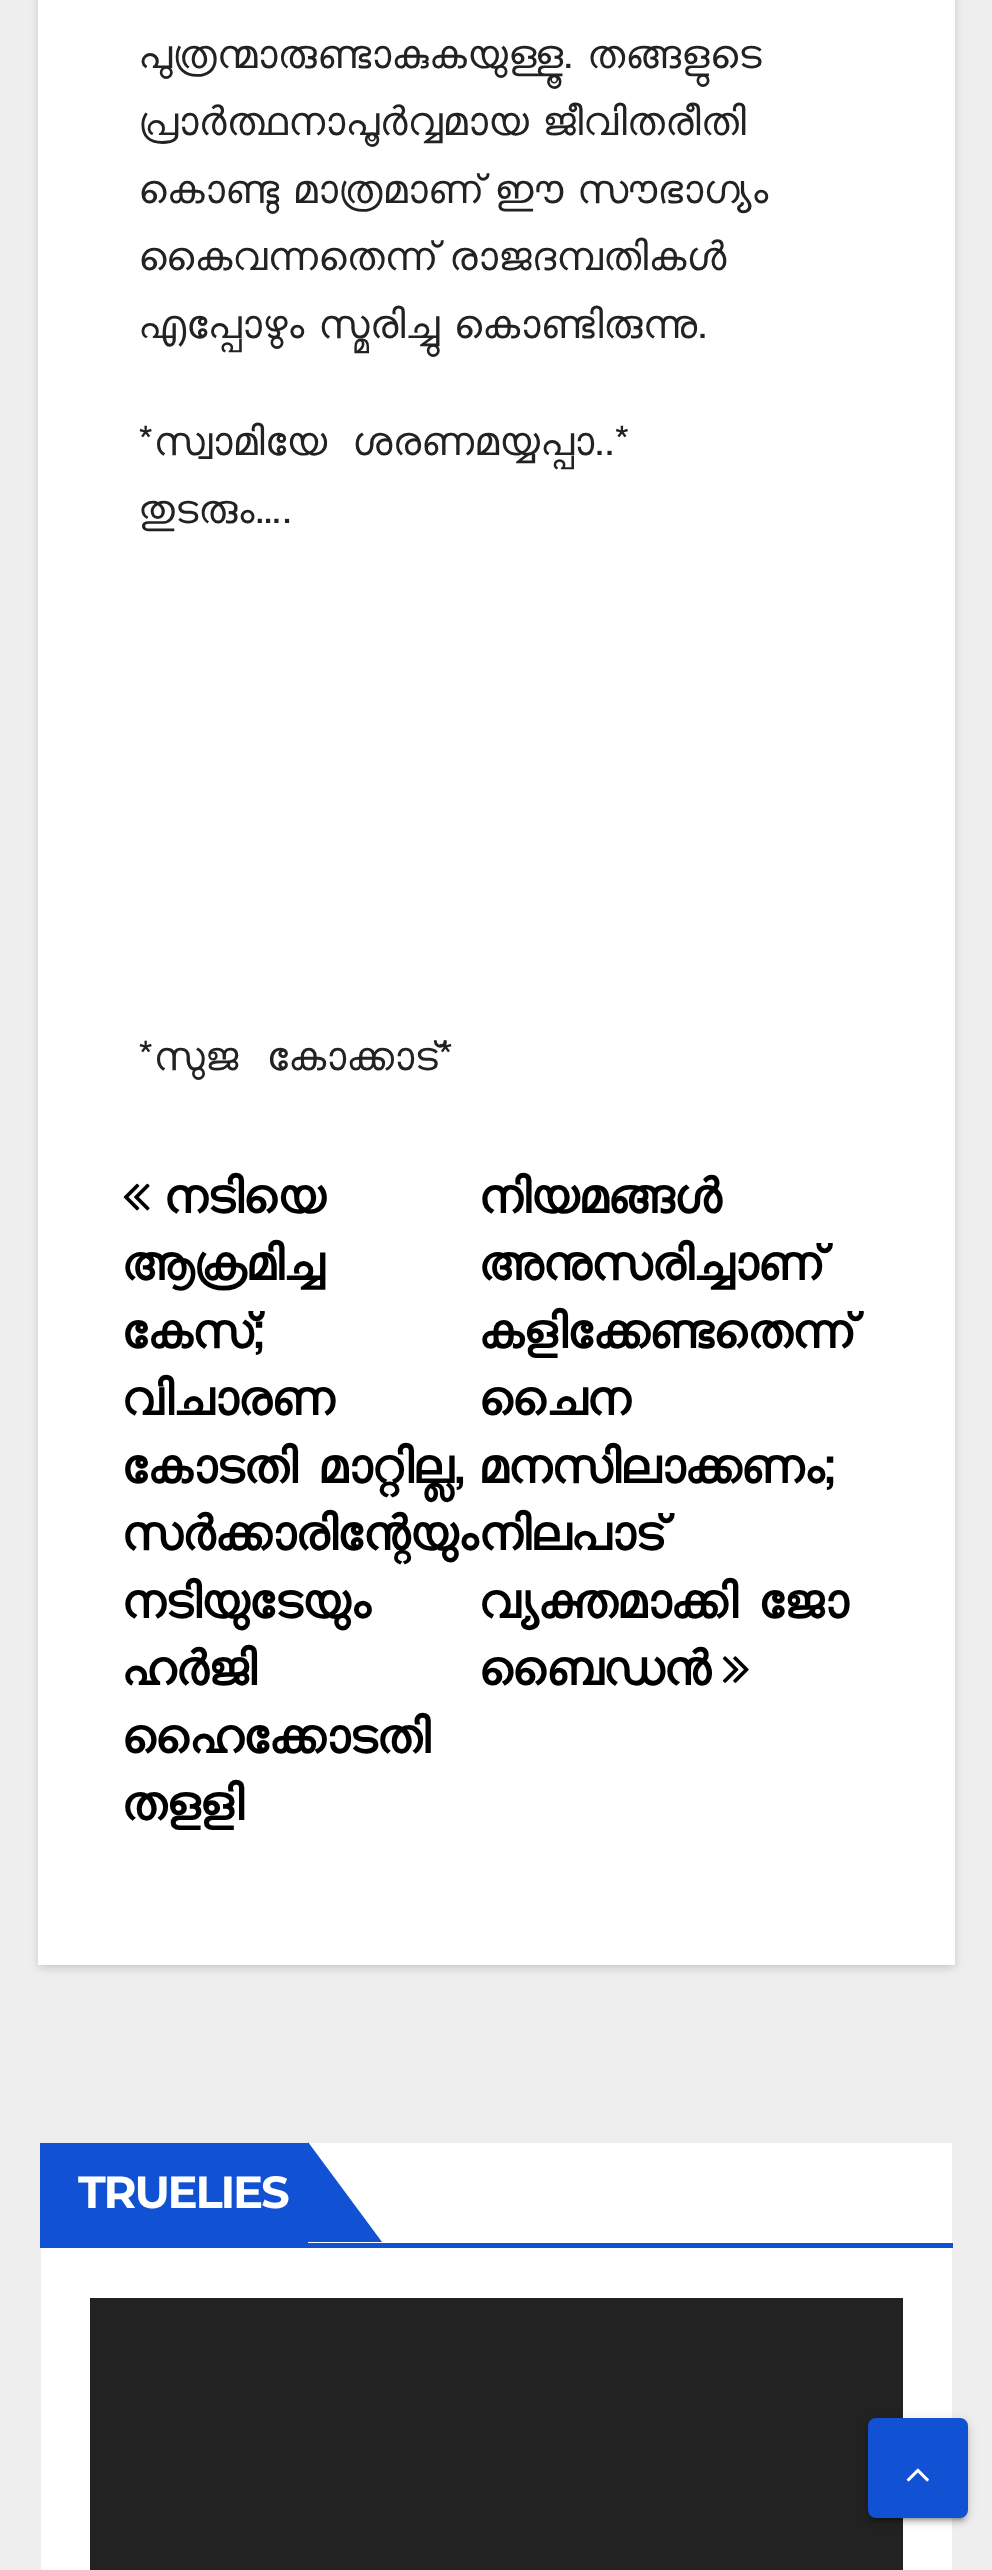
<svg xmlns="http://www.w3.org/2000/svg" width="992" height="2570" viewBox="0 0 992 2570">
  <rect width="100%" height="100%" fill="rgb(238,238,238)"/>
  <rect x="38" y="-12" width="917" height="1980" fill="rgba(0,0,0,0.15)" filter="blur(4px)"/>
  <rect x="38" y="0" width="917" height="1965" fill="rgb(255,255,255)"/>
  <g font-family="FreeSans" font-size="40" fill="rgb(34,34,34)">
    <text>
      <tspan x="138" y="68" word-spacing="-2">പുത്രന്മാരുണ്ടാകുകയുള്ളൂ. തങ്ങളുടെ</tspan>
      <tspan x="138" y="135" word-spacing="-2.5">പ്രാർത്ഥനാപൂർവ്വമായ ജീവിതരീതി</tspan>
      <tspan x="138" y="203" word-spacing="-2.5">കൊണ്ടു മാത്രമാണ് ഈ സൗഭാഗ്യം</tspan>
      <tspan x="138" y="270" word-spacing="-2">കൈവന്നതെന്ന് രാജദമ്പതികൾ</tspan>
      <tspan x="138" y="338" word-spacing="-2">എപ്പോഴും സ്മരിച്ചു കൊണ്ടിരുന്നു.</tspan>
    </text>
    <text>
      <tspan x="138" y="455" word-spacing="9">*സ്വാമിയേ ശരണമയ്യപ്പാ..*</tspan>
      <tspan x="138" y="523">തുടരും….</tspan>
    </text>
    <text x="138" y="1070" word-spacing="12">*സുജ കോക്കാട്*</text>
  </g>
  <image x="123" y="1183" width="27" height="28" href="pic1.png"/>
  <g font-family="FreeSans" font-size="48" font-weight="bold" letter-spacing="-1" fill="rgb(0,0,0)">
    <text x="163" y="1213">നടിയെ</text>
    <text>
      <tspan x="121" y="1280">ആക്രമിച്ച</tspan>
      <tspan x="121" y="1348">കേസ്;</tspan>
      <tspan x="121" y="1415">വിചാരണ</tspan>
      <tspan x="121" y="1483" word-spacing="3">കോടതി മാറ്റില്ല,</tspan>
      <tspan x="121" y="1550">സർക്കാരിന്റേയും</tspan>
      <tspan x="121" y="1618">നടിയുടേയും</tspan>
      <tspan x="121" y="1685">ഹർജി</tspan>
      <tspan x="121" y="1753">ഹൈക്കോടതി</tspan>
      <tspan x="121" y="1820">തളളി</tspan>
    </text>
    <text>
      <tspan x="478" y="1213">നിയമങ്ങൾ</tspan>
      <tspan x="478" y="1280">അനുസരിച്ചാണ്</tspan>
      <tspan x="478" y="1348">കളിക്കേണ്ടതെന്ന്</tspan>
      <tspan x="478" y="1415">ചൈന</tspan>
      <tspan x="478" y="1483">മനസിലാക്കണം;</tspan>
      <tspan x="478" y="1550">നിലപാട്</tspan>
      <tspan x="478" y="1618" word-spacing="3">വ്യക്തമാക്കി ജോ</tspan>
      <tspan x="478" y="1685">ബൈഡൻ</tspan>
    </text>
  </g>
  <image x="722" y="1656" width="27" height="27" href="pic2.png"/>
  <rect x="41" y="2143" width="911" height="427" fill="rgb(255,255,255)"/>
  <rect x="40" y="2243" width="913" height="5" fill="rgb(17,81,211)"/>
  <rect x="40" y="2143" width="268" height="100" fill="rgb(17,81,211)"/>
  <text x="78" y="2208" font-family="Montserrat" font-size="45" font-weight="bold" letter-spacing="-2.25" fill="rgb(255,255,255)">TRUELIES</text>
  <path d="M308 2242V2142L382 2242Z" fill="rgb(17,81,211)"/>
  <rect x="90" y="2298" width="813" height="272" fill="rgb(34,34,34)"/>
  <rect x="868" y="2420" width="100" height="100" rx="8" fill="rgba(0,0,0,0.12)" filter="blur(6px)"/>
  <rect x="873" y="2430" width="90" height="90" rx="2.5" fill="rgba(0,0,0,0.2)" filter="blur(1px)"/>
  <rect x="868" y="2423" width="100" height="100" rx="8" fill="rgba(0,0,0,0.14)" filter="blur(2.5px)"/>
  <rect x="870.5" y="2420.5" width="95" height="95" rx="5.5" fill="rgb(17,81,211)" stroke="rgb(17,81,211)" stroke-width="5"/>
  <image x="906" y="2468" width="23" height="14" href="pic3.png"/>
</svg>
